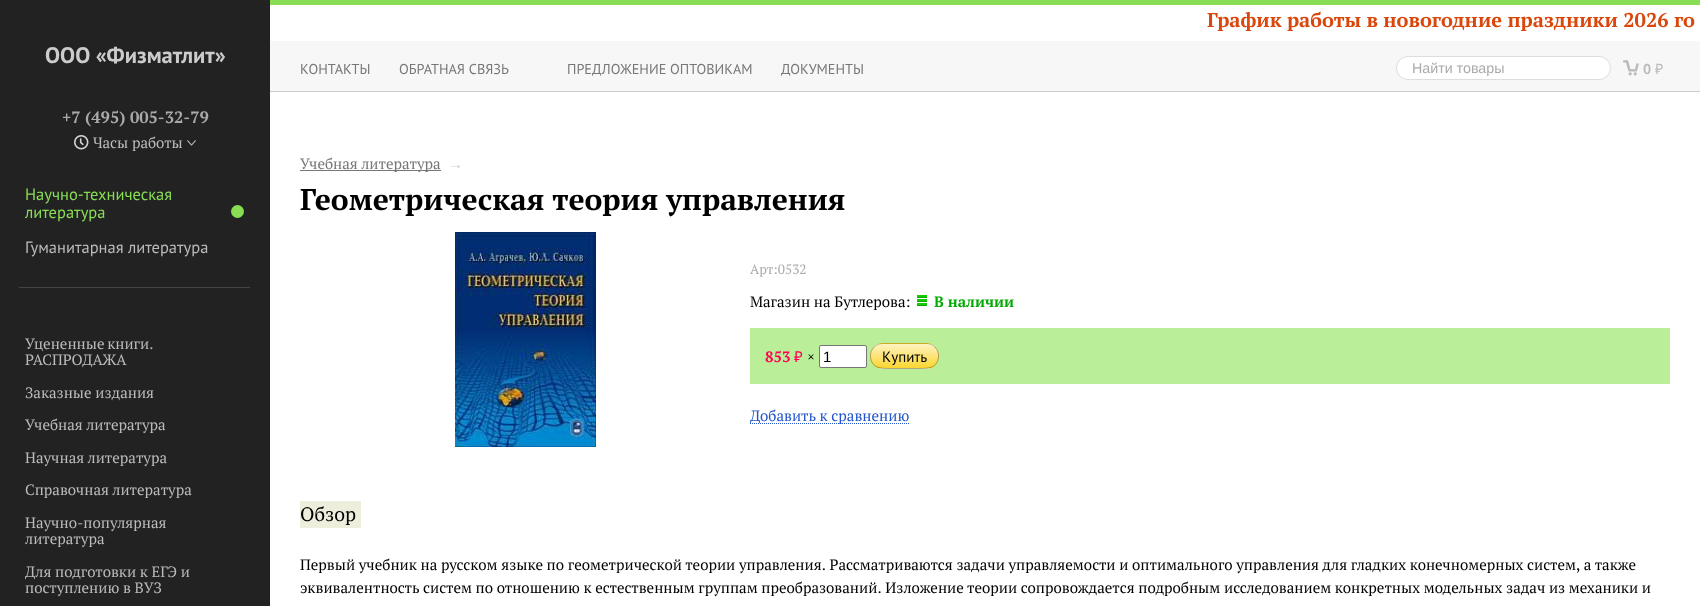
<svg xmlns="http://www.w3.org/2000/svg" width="1700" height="606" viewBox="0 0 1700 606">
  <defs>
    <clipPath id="clip1"><rect x="870" y="343" width="69" height="26" rx="13"/></clipPath>
    <linearGradient id="g1" gradientUnits="userSpaceOnUse" x1="905" y1="344" x2="905" y2="368"><stop offset="0" stop-color="rgb(255,255,255)" stop-opacity="0.7"/><stop offset="1" stop-color="rgb(255,255,255)" stop-opacity="0"/></linearGradient>
    <linearGradient id="g2" gradientUnits="userSpaceOnUse" x1="905" y1="368" x2="905" y2="392"><stop offset="0" stop-color="rgb(255,255,255)" stop-opacity="0.7"/><stop offset="1" stop-color="rgb(255,255,255)" stop-opacity="0"/></linearGradient>
  </defs>
  <rect width="100%" height="100%" fill="rgb(34,34,34)"/>
  <text x="45" y="63" font-family="PT Sans" font-size="22.5" font-weight="bold" fill="rgb(204,204,204)">ООО «Физматлит»</text>
  <text x="62" y="123" font-family="PT Serif" font-size="16.5" font-weight="bold" fill="rgb(170,170,170)">+7 (495) 005-32-79</text>
  <image x="74" y="135" width="15" height="15" href="pic1.png"/>
  <text x="93" y="148" font-family="PT Serif" font-size="15" fill="rgb(187,187,187)">Часы работы</text>
  <image x="187" y="140" width="9" height="6" href="pic2.png"/>
  <rect x="19" y="287" width="231" height="1" fill="rgb(68,68,68)"/>
  <g font-family="PT Sans" font-size="16.5" fill="rgb(136,221,85)">
    <text>
      <tspan x="25" y="200">Научно-техническая</tspan>
      <tspan x="25" y="218">литература</tspan>
    </text>
  </g>
  <circle cx="237.5" cy="211.5" r="6.5" fill="rgb(136,221,85)"/>
  <text x="25" y="253" font-family="PT Sans" font-size="16.5" fill="rgb(187,187,187)">Гуманитарная литература</text>
  <g font-family="PT Serif" font-size="15" fill="rgb(187,187,187)">
    <text>
      <tspan x="25" y="349" word-spacing="-1">Уцененные книги.</tspan>
      <tspan x="25" y="365">РАСПРОДАЖА</tspan>
    </text>
    <text x="25" y="398">Заказные издания</text>
    <text x="25" y="430">Учебная литература</text>
    <text x="25" y="463">Научная литература</text>
    <text x="25" y="495">Справочная литература</text>
    <text>
      <tspan x="25" y="528">Научно-популярная</tspan>
      <tspan x="25" y="544">литература</tspan>
    </text>
    <text>
      <tspan x="25" y="577">Для подготовки к ЕГЭ и</tspan>
      <tspan x="25" y="593">поступлению в ВУЗ</tspan>
    </text>
  </g>
  <rect x="270" y="5" width="1430" height="601" fill="rgb(255,255,255)"/>
  <rect x="270" y="0" width="1430" height="5" fill="rgb(136,221,85)"/>
  <text x="1207" y="27" font-family="PT Serif" font-size="20" font-weight="bold" fill="rgb(217,71,13)">График работы в новогодние праздники 2026 го</text>
  <rect x="270" y="41" width="1430" height="50" fill="rgb(247,247,247)"/>
  <rect x="270" y="91" width="1430" height="1" fill="rgb(204,204,204)"/>
  <g font-family="PT Sans" font-size="14.25" fill="rgb(119,119,119)">
    <text x="300" y="74">КОНТАКТЫ</text>
    <text x="399" y="74">ОБРАТНАЯ СВЯЗЬ</text>
    <text x="567" y="74">ПРЕДЛОЖЕНИЕ ОПТОВИКАМ</text>
    <text x="781" y="74">ДОКУМЕНТЫ</text>
  </g>
  <rect x="1396.5" y="56.5" width="214" height="23" rx="11.5" fill="rgb(255,255,255)" stroke="rgb(221,221,221)"/>
  <text x="1412" y="73" font-family="Liberation Sans" font-size="14.25" fill="rgb(170,170,170)">Найти товары</text>
  <image x="1623" y="60" width="16" height="16" href="pic3.png"/>
  <text x="1643" y="74" font-family="PT Sans" font-size="14.25" font-weight="bold" fill="rgb(187,187,187)">0</text>
  <text x="1655" y="74" font-family="Noto Sans" font-size="14.25" fill="rgb(187,187,187)">₽</text>
  <rect x="300" y="170" width="141" height="1" fill="rgb(119,119,119)"/>
  <text x="300" y="169" font-family="PT Serif" font-size="15" fill="rgb(119,119,119)">Учебная литература</text>
  <text x="448" y="169" font-family="Liberation Serif" font-size="15" fill="rgb(204,204,204)">→</text>
  <text x="300" y="210" font-family="PT Serif" font-size="30" font-weight="bold" fill="rgb(0,0,0)">Геометрическая теория управления</text>
  <image x="455" y="232" width="141" height="215" href="pic4.png"/>
  <text x="750" y="274" font-family="PT Serif" font-size="13.5" fill="rgb(170,170,170)">Арт:0532</text>
  <text x="750" y="307" font-family="PT Serif" font-size="15" fill="rgb(0,0,0)">Магазин на Бутлерова:</text>
  <image x="917" y="295" width="10" height="11" href="pic5.png"/>
  <text x="934" y="307" font-family="PT Serif" font-size="15" font-weight="bold" fill="rgb(0,170,0)">В наличии</text>
  <rect x="750" y="328" width="920" height="56" fill="rgb(187,238,153)"/>
  <text x="765" y="362" font-family="PT Serif" font-size="15" font-weight="bold" fill="rgb(255,0,85)">853</text>
  <text x="794" y="362" font-family="Noto Sans" font-size="15" fill="rgb(255,0,85)">₽</text>
  <text x="807" y="362" font-family="PT Serif" font-size="15" fill="rgb(0,0,0)">×</text>
  <rect x="819.5" y="345.5" width="47" height="22" rx="1.5" fill="rgb(255,255,255)" stroke="rgb(118,118,118)"/>
  <text x="823" y="362" font-family="Liberation Sans" font-size="15" fill="rgb(0,0,0)">1</text>
  <rect x="870" y="343" width="69" height="26" rx="13" fill="rgb(252,214,48)"/>
  <g clip-path="url(#clip1)">
    <rect x="870" y="344" width="69" height="23" fill="url(#g1)"/>
    <rect x="870" y="368" width="69" height="1" fill="url(#g2)"/>
  </g>
  <path d="M874 347C876.5 345 879.5 343.5 883 343.5H926C929.5 343.5 932.5 345 935 347" fill="none" stroke="rgba(0,0,0,0.2)"/>
  <path d="M935 347C937.5 350 939 353.5 938.5 357C937.5 368.5 927.5 368.5 919 368.5H890C881.5 368.5 871.5 368.5 870.5 357C870 353.5 871.5 350 874 347" fill="none" stroke="rgba(0,0,0,0.3)"/>
  <text x="882" y="362" font-family="PT Sans" font-size="15" fill="rgb(0,0,0)">Купить</text>
  <path d="M750 423.5H909" fill="none" stroke="rgb(34,85,204)" stroke-dasharray="1 1"/>
  <text x="750" y="421" font-family="PT Serif" font-size="15" fill="rgb(34,85,204)">Добавить к сравнению</text>
  <rect x="300" y="501" width="61" height="27" fill="rgb(238,238,221)"/>
  <text x="300" y="521" font-family="PT Serif" font-size="19.5" fill="rgb(0,0,0)">Обзор</text>
  <g font-family="PT Serif" font-size="15" fill="rgb(0,0,0)">
    <text>
      <tspan x="300" y="570">Первый учебник на русском языке по геометрической теории управления. Рассматриваются задачи управляемости и оптимального управления для гладких конечномерных систем, а также</tspan>
      <tspan x="300" y="593">эквивалентность систем по отношению к естественным группам преобразований. Изложение теории сопровождается подробным исследованием конкретных модельных задач из механики и</tspan>
    </text>
  </g>
</svg>
